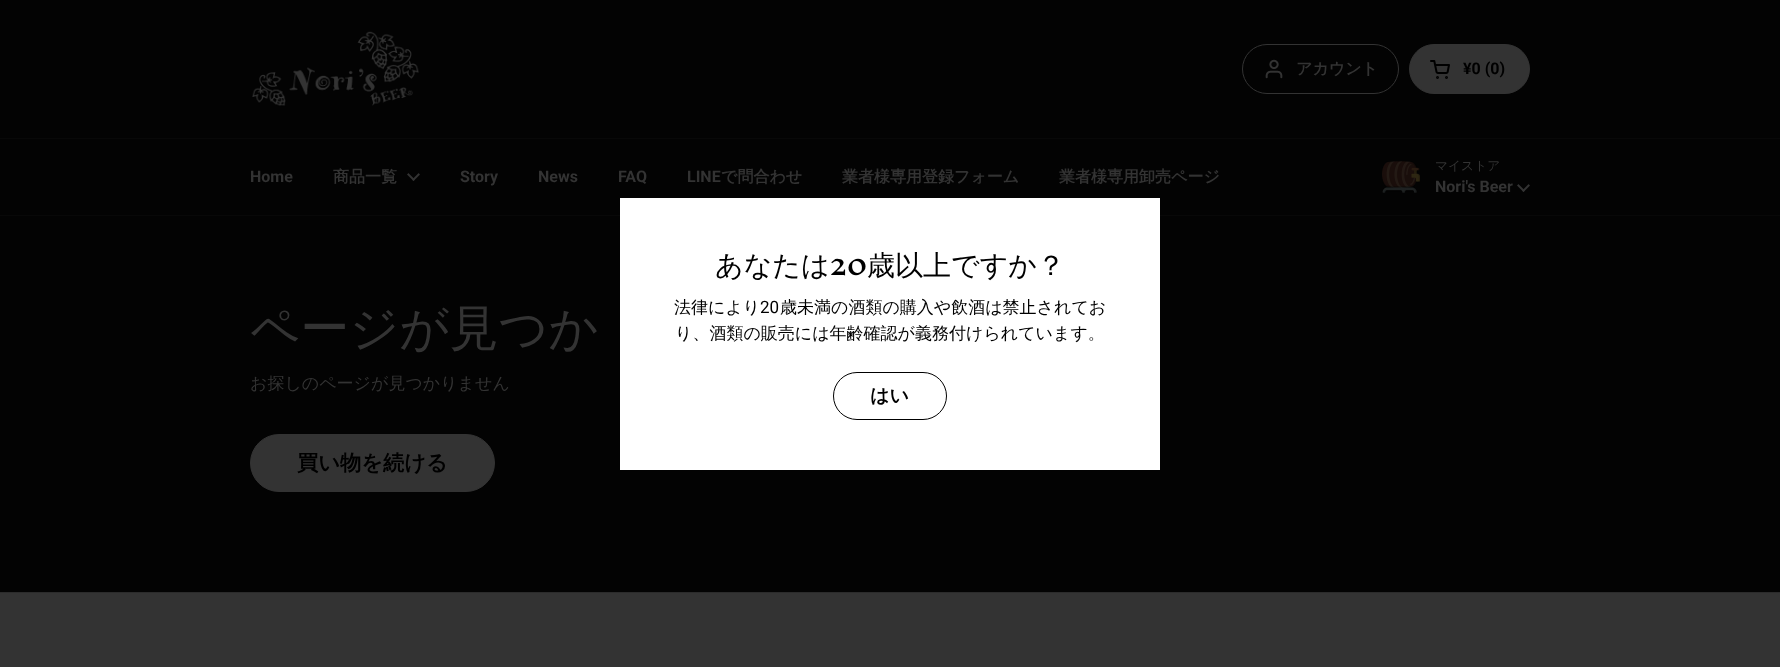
<svg xmlns="http://www.w3.org/2000/svg" width="1780" height="667" viewBox="0 0 1780 667">
  <rect width="100%" height="100%" fill="rgb(3,3,3)"/>
  <rect x="0" y="138" width="1780" height="1" fill="rgb(8,8,8)"/>
  <image x="251" y="31" width="169" height="76" href="pic1.png"/>
  <rect x="1242.5" y="44.5" width="156" height="49" rx="24.5" fill="none" stroke="rgb(51,51,51)"/>
  <image x="1265" y="59" width="18" height="20" href="pic2.png"/>
  <text x="1296" y="74" font-family="WenQuanYi Zen Hei" font-size="16" font-weight="bold" fill="rgb(51,51,51)">アカウント</text>
  <rect x="1409.5" y="44.5" width="120" height="49" rx="24.5" fill="rgb(51,51,51)" stroke="rgb(51,51,51)"/>
  <image x="1430" y="60" width="20" height="19" href="pic3.png"/>
  <text x="1463" y="74" font-family="Roboto" font-size="16" font-weight="bold" fill="rgb(0,0,0)">¥0 (0)</text>
  <rect x="0" y="215" width="1780" height="1" fill="rgb(8,8,8)"/>
  <text x="250" y="182" font-family="Roboto" font-size="16" font-weight="bold" fill="rgb(51,51,51)">Home</text>
  <text x="333" y="182" font-family="WenQuanYi Zen Hei" font-size="16" font-weight="bold" fill="rgb(51,51,51)">商品一覧</text>
  <image x="407" y="173" width="13" height="8" href="pic4.png"/>
  <g font-family="Roboto" font-size="16" font-weight="bold" fill="rgb(51,51,51)">
    <text x="460" y="182">Story</text>
    <text x="538" y="182">News</text>
    <text x="618" y="182">FAQ</text>
    <text x="687" y="182">LINE</text>
  </g>
  <g font-family="WenQuanYi Zen Hei" font-size="16" font-weight="bold" fill="rgb(51,51,51)">
    <text x="721" y="182">で問合わせ</text>
    <text x="842" y="182">業者様専用登録フォーム</text>
    <text x="1059" y="182">業者様専用卸売ページ</text>
  </g>
  <image x="1382" y="161" width="38" height="32" href="pic5.png"/>
  <text x="1435" y="170" font-family="WenQuanYi Zen Hei" font-size="12.75" font-weight="500" fill="rgb(51,51,51)">マイストア</text>
  <text x="1435" y="192" font-family="Roboto" font-size="16" font-weight="bold" fill="rgb(51,51,51)">Nori's Beer</text>
  <image x="1517" y="184" width="13" height="8" href="pic4.png"/>
  <text x="250" y="345" font-family="WenQuanYi Zen Hei" font-size="49" font-weight="500" fill="rgb(51,51,51)">ページが見つか</text>
  <text x="250" y="389" font-family="WenQuanYi Zen Hei" font-size="17" font-weight="500" fill="rgb(51,51,51)">お探しのページが見つかりません</text>
  <rect x="250.5" y="434.5" width="244" height="57" rx="28.5" fill="rgb(51,51,51)" stroke="rgb(51,51,51)"/>
  <text x="297" y="470" font-family="WenQuanYi Zen Hei" font-size="21.25" font-weight="bold" fill="rgb(0,0,0)">買い物を続ける</text>
  <rect x="620" y="198" width="540" height="272" fill="rgb(255,255,255)"/>
  <text x="715" y="275" font-family="WenQuanYi Zen Hei" font-size="28" font-weight="500" fill="rgb(0,0,0)">あなたは</text>
  <text x="830" y="275" font-family="Inknut Antiqua" font-size="28" fill="rgb(0,0,0)">20</text>
  <text x="867" y="275" font-family="WenQuanYi Zen Hei" font-size="28" font-weight="500" fill="rgb(0,0,0)">歳以上ですか？</text>
  <text x="674" y="313" font-family="WenQuanYi Zen Hei" font-size="17" font-weight="500" fill="rgb(0,0,0)">法律により</text>
  <text x="760" y="313" font-family="Roboto" font-size="17" fill="rgb(0,0,0)">20</text>
  <g font-family="WenQuanYi Zen Hei" font-size="17" font-weight="500" fill="rgb(0,0,0)">
    <text x="780" y="313">歳未満の酒類の購入や飲酒は禁止されてお</text>
    <text x="675" y="339">り、酒類の販売には年齢確認が義務付けられています。</text>
  </g>
  <rect x="833.5" y="372.5" width="113" height="47" rx="23.5" fill="none" stroke="rgb(0,0,0)"/>
  <text x="870" y="402" font-family="WenQuanYi Zen Hei" font-size="19" font-weight="bold" fill="rgb(0,0,0)">はい</text>
  <rect x="0" y="593" width="1780" height="74" fill="rgb(51,51,51)"/>
  <rect x="0" y="592" width="1780" height="1" fill="rgb(43,43,43)"/>
</svg>
